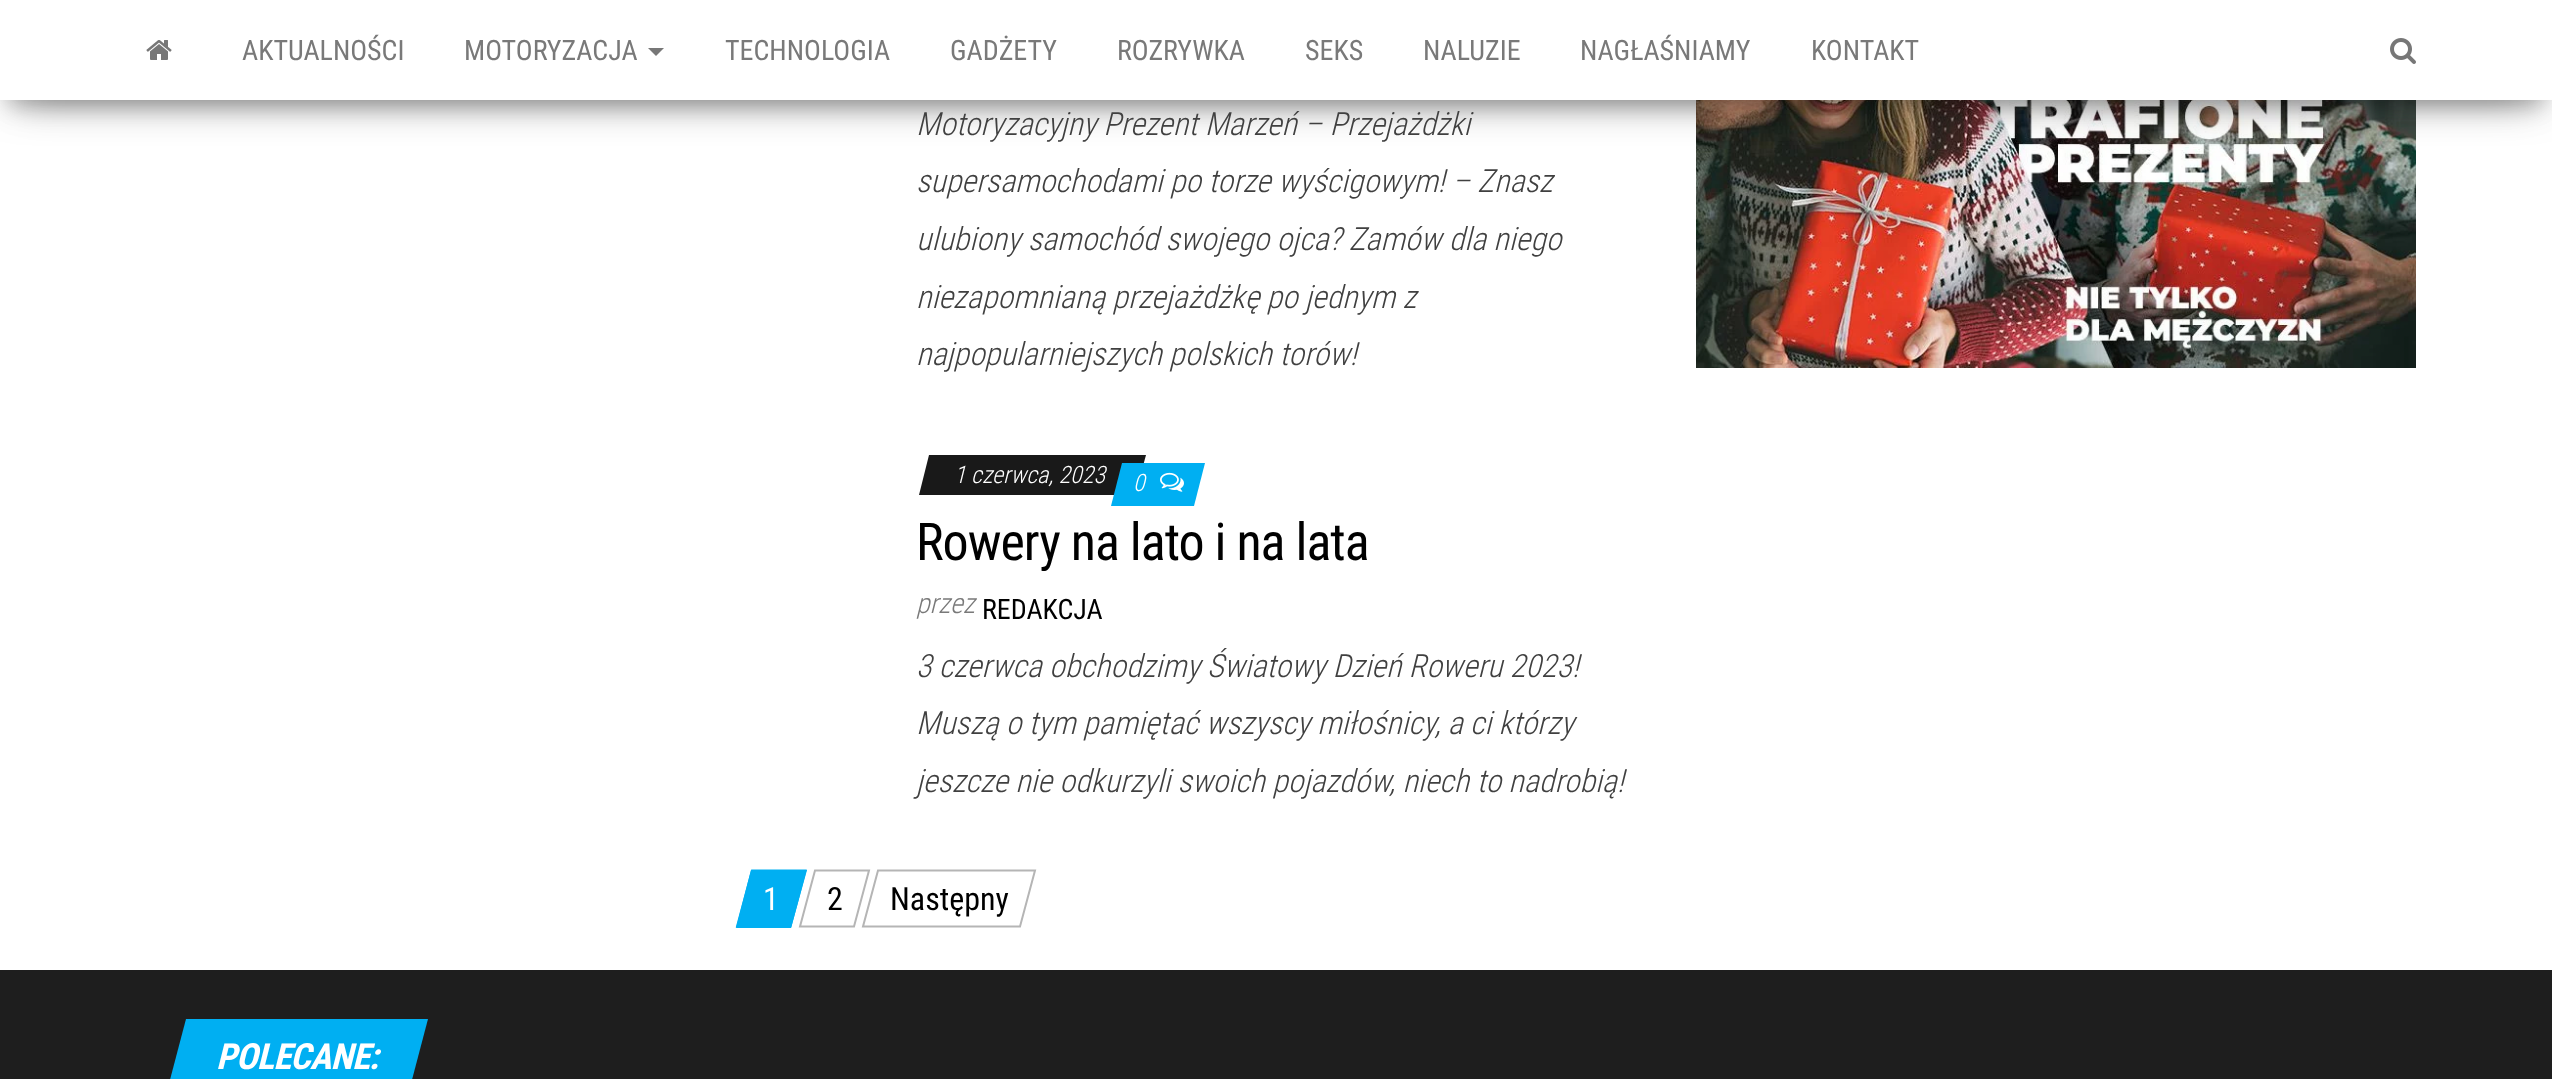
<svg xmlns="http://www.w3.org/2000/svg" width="2552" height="1079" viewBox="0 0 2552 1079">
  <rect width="100%" height="100%" fill="rgb(255,255,255)"/>
  <image x="1696" y="100" width="720" height="268" href="pic4.png"/>
  <rect x="10" y="26" width="2532" height="80" fill="rgba(0,0,0,0.2)" filter="blur(10px)"/>
  <rect x="0" y="6" width="2552" height="100" fill="rgba(0,0,0,0.12)" filter="blur(20px)"/>
  <rect x="24" y="44" width="2504" height="52" fill="rgba(0,0,0,0.42)" filter="blur(20px)"/>
  <rect x="0" y="0" width="2552" height="100" fill="rgb(255,255,255)"/>
  <image x="146" y="40" width="26" height="20" href="pic1.png"/>
  <g font-family="Roboto Condensed" font-size="28" fill="rgb(121,121,121)">
    <text x="242" y="60">AKTUALNOŚCI</text>
    <text x="464" y="60">MOTORYZACJA</text>
  </g>
  <path d="M648 48H664L656 56Z" fill="rgb(119,119,119)"/>
  <g font-family="Roboto Condensed" font-size="28" fill="rgb(121,121,121)">
    <text x="725" y="60">TECHNOLOGIA</text>
    <text x="950" y="60">GADŻETY</text>
    <text x="1117" y="60">ROZRYWKA</text>
    <text x="1305" y="60">SEKS</text>
    <text x="1423" y="60">NALUZIE</text>
    <text x="1580" y="60">NAGŁAŚNIAMY</text>
    <text x="1811" y="60">KONTAKT</text>
  </g>
  <image x="2390" y="38" width="26" height="26" href="pic2.png"/>
  <g font-family="Roboto Condensed" font-size="32" font-weight="300" font-style="italic" fill="rgb(64,64,64)">
    <text>
      <tspan x="916" y="135">Motoryzacyjny Prezent Marzeń – Przejażdżki</tspan>
      <tspan x="916" y="192">supersamochodami po torze wyścigowym! – Znasz</tspan>
      <tspan x="916" y="250">ulubiony samochód swojego ojca? Zamów dla niego</tspan>
      <tspan x="916" y="308">niezapomnianą przejażdżkę po jednym z</tspan>
      <tspan x="916" y="365">najpopularniejszych polskich torów!</tspan>
    </text>
  </g>
  <path d="M929 455H1146L1135 495H919Z" fill="rgb(25,25,25)"/>
  <text x="954" y="483" font-family="Roboto Condensed" font-size="24" font-weight="300" font-style="italic" fill="rgb(255,255,255)">1 czerwca, 2023</text>
  <path d="M1122 463H1205L1194 506H1111Z" fill="rgb(0,175,242)"/>
  <text x="1133" y="491" font-family="Roboto Condensed" font-size="24" font-weight="300" font-style="italic" fill="rgb(255,255,255)">0</text>
  <image x="1160" y="472" width="24" height="20" href="pic3.png"/>
  <text x="916" y="560" font-family="Roboto Condensed" font-size="52" letter-spacing="-1" fill="rgb(0,0,0)">Rowery na lato i na lata</text>
  <text x="916" y="613" font-family="Roboto Condensed" font-size="28" font-weight="300" font-style="italic" fill="rgb(121,121,121)">przez</text>
  <text x="982" y="619" font-family="Roboto Condensed" font-size="28" fill="rgb(0,0,0)">REDAKCJA</text>
  <g font-family="Roboto Condensed" font-size="32" font-weight="300" font-style="italic" fill="rgb(64,64,64)">
    <text>
      <tspan x="916" y="677">3 czerwca obchodzimy Światowy Dzień Roweru 2023!</tspan>
      <tspan x="916" y="734">Muszą o tym pamiętać wszyscy miłośnicy, a ci którzy</tspan>
      <tspan x="916" y="792">jeszcze nie odkurzyli swoich pojazdów, niech to nadrobią!</tspan>
    </text>
  </g>
  <path d="M751 870H807L791 928H736Z" fill="rgb(0,175,242)"/>
  <path d="M752 870.5H805.5L790.5 926.5H737Z" fill="none" stroke="rgb(0,175,242)" stroke-width="2"/>
  <text x="763" y="910" font-family="Roboto Condensed" font-size="32" fill="rgb(255,255,255)">1</text>
  <path d="M815 870.5H869L854 926.5H800Z" fill="none" stroke="rgb(181,181,181)" stroke-width="2"/>
  <text x="827" y="910" font-family="Roboto Condensed" font-size="32" fill="rgb(0,0,0)">2</text>
  <path d="M878 870.5H1035L1020 926.5H863Z" fill="none" stroke="rgb(181,181,181)" stroke-width="2"/>
  <text x="890" y="910" font-family="Roboto Condensed" font-size="32" fill="rgb(0,0,0)">Następny</text>
  <rect x="0" y="970" width="2552" height="109" fill="rgb(30,30,30)"/>
  <path d="M186 1019H428L408 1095H166Z" fill="rgb(0,175,242)"/>
  <text x="216" y="1069" font-family="Roboto Condensed" font-size="36" font-weight="bold" font-style="italic" letter-spacing="-0.75" fill="rgb(255,255,255)">POLECANE:</text>
</svg>
